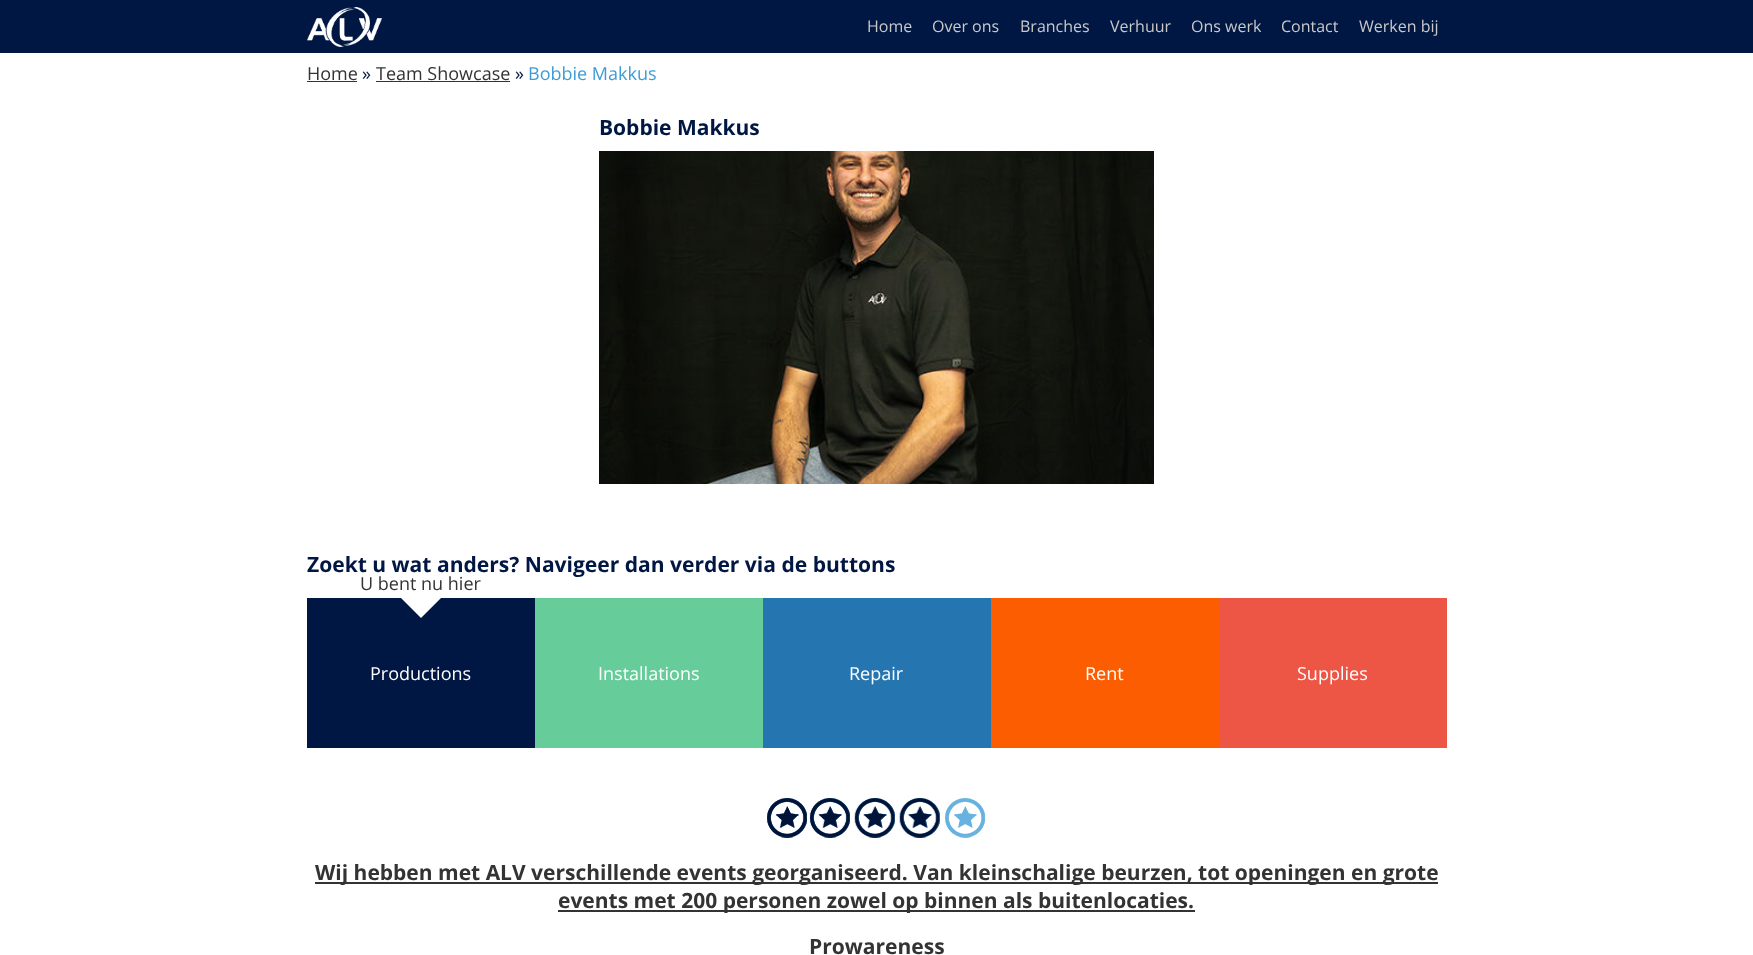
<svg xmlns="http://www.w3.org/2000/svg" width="1753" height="955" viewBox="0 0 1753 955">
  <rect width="100%" height="100%" fill="rgb(255,255,255)"/>
  <rect x="0" y="0" width="1753" height="53" fill="rgb(0,23,67)"/>
  <image x="307" y="7" width="75" height="40" href="pic1.png"/>
  <g font-family="Open Sans" font-size="16" fill="rgb(201,201,201)">
    <text x="867" y="32">Home</text>
    <text x="932" y="32">Over ons</text>
    <text x="1020" y="32">Branches</text>
    <text x="1110" y="32">Verhuur</text>
    <text x="1191" y="32">Ons werk</text>
    <text x="1281" y="32">Contact</text>
    <text x="1359" y="32">Werken bij</text>
  </g>
  <text x="307" y="80" font-family="Open Sans" font-size="18" fill="rgb(51,51,51)">Home</text>
  <rect x="307" y="81" width="50" height="1" fill="rgb(51,51,51)"/>
  <text x="362" y="80" font-family="Open Sans" font-size="18" fill="rgb(0,23,67)">»</text>
  <text x="376" y="80" font-family="Open Sans" font-size="18" fill="rgb(51,51,51)">Team Showcase</text>
  <rect x="376" y="81" width="134" height="1" fill="rgb(51,51,51)"/>
  <text x="515" y="80" font-family="Open Sans" font-size="18" fill="rgb(0,23,67)">»</text>
  <text x="528" y="80" font-family="Open Sans" font-size="18" fill="rgb(61,156,214)">Bobbie Makkus</text>
  <text x="599" y="135" font-family="Open Sans" font-size="21" font-weight="bold" fill="rgb(0,23,67)">Bobbie Makkus</text>
  <image x="599" y="151" width="555" height="333" href="pic2.png"/>
  <text x="307" y="572" font-family="Open Sans" font-size="21.05" font-weight="bold" fill="rgb(0,23,67)">Zoekt u wat anders? Navigeer dan verder via de buttons</text>
  <rect x="307" y="598" width="228" height="150" fill="rgb(0,23,67)"/>
  <text x="360" y="590" font-family="Open Sans" font-size="18" fill="rgb(51,51,51)">U bent nu hier</text>
  <path d="M401 598H441L421 618Z" fill="rgb(255,255,255)"/>
  <text x="370" y="680" font-family="Open Sans" font-size="18" fill="rgb(255,255,255)">Productions</text>
  <rect x="535" y="598" width="228" height="150" fill="rgb(102,204,154)"/>
  <text x="598" y="680" font-family="Open Sans" font-size="18" fill="rgb(255,255,255)">Installations</text>
  <rect x="763" y="598" width="228" height="150" fill="rgb(37,117,177)"/>
  <text x="849" y="680" font-family="Open Sans" font-size="18" fill="rgb(255,255,255)">Repair</text>
  <rect x="991" y="598" width="228" height="150" fill="rgb(252,93,0)"/>
  <text x="1085" y="680" font-family="Open Sans" font-size="18" fill="rgb(255,255,255)">Rent</text>
  <rect x="1219" y="598" width="228" height="150" fill="rgb(237,85,69)"/>
  <text x="1297" y="680" font-family="Open Sans" font-size="18" fill="rgb(255,255,255)">Supplies</text>
  <image x="767" y="798" width="218" height="40" href="pic3.png"/>
  <image x="767" y="798" width="173" height="40" href="pic4.png"/>
  <rect x="315" y="882" width="1123" height="2" fill="rgb(51,51,51)"/>
  <text x="315" y="880" font-family="Open Sans" font-size="21" font-weight="bold" fill="rgb(51,51,51)">Wij hebben met ALV verschillende events georganiseerd. Van kleinschalige beurzen, tot openingen en grote</text>
  <rect x="558" y="910" width="637" height="2" fill="rgb(51,51,51)"/>
  <text x="558" y="908" font-family="Open Sans" font-size="21" font-weight="bold" fill="rgb(51,51,51)">events met 200 personen zowel op binnen als buitenlocaties.</text>
  <text x="809" y="954" font-family="Open Sans" font-size="21.05" font-weight="bold" fill="rgb(51,51,51)">Prowareness</text>
</svg>
